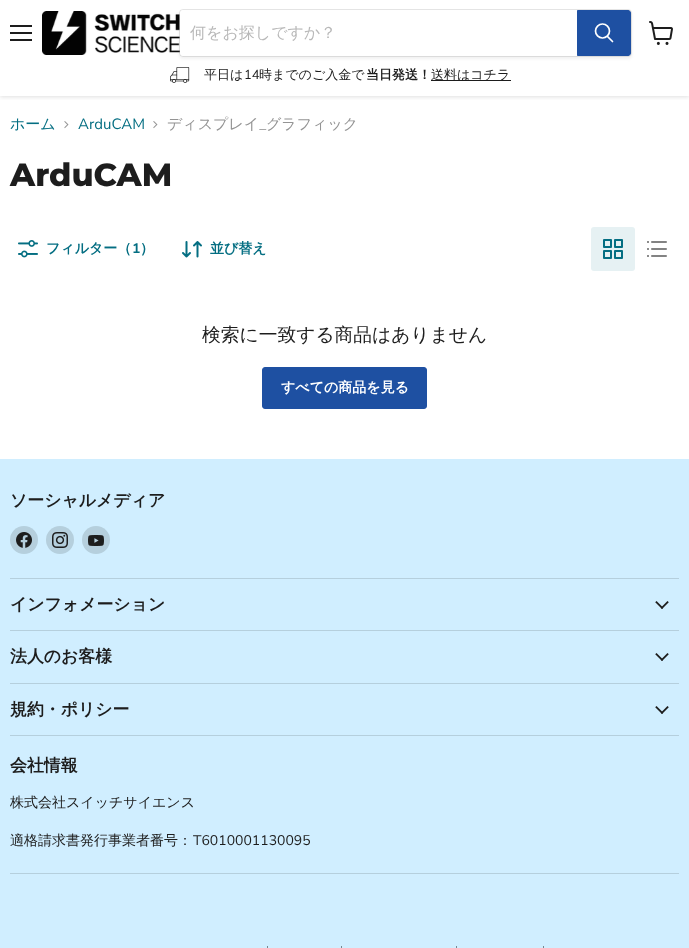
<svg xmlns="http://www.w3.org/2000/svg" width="689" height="948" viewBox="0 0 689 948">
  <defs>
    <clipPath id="clip1"><rect x="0" y="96" width="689" height="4"/></clipPath>
  </defs>
  <rect width="100%" height="100%" fill="rgb(255,255,255)"/>
  <g clip-path="url(#clip1)">
    <rect x="0" y="1" width="689" height="96" fill="rgba(128,128,128,0.25)" filter="blur(2px)"/>
  </g>
  <rect x="10" y="25" width="22" height="2" fill="rgb(29,29,29)"/>
  <rect x="10" y="32" width="22" height="2" fill="rgb(29,29,29)"/>
  <rect x="10" y="39" width="22" height="2" fill="rgb(29,29,29)"/>
  <image x="42" y="11" width="138" height="44" href="pic1.png"/>
  <rect x="179" y="11" width="453" height="48" rx="4" fill="rgba(128,128,128,0.11)" filter="blur(1.5px)"/>
  <rect x="179.5" y="9.5" width="452" height="47" rx="3.5" fill="none" stroke="rgba(128,128,128,0.2)"/>
  <path d="M183 10H577V56H183C181.5 56 180 54.5 180 53V13C180 11.5 181.5 10 183 10Z" fill="rgb(255,255,255)"/>
  <text x="190" y="38" font-family="WenQuanYi Zen Hei" font-size="16" font-weight="500" fill="rgb(184,184,184)">何をお探しですか？</text>
  <path d="M577.5 10.5H628C629.5 10.5 630.5 11.5 630.5 13V53C630.5 54.5 629.5 55.5 628 55.5H577.5Z" fill="rgb(30,80,162)" stroke="rgb(30,80,162)"/>
  <path d="M612.5 41.5L607.5 36.5" fill="none" stroke="rgb(255,255,255)" stroke-width="1.7" stroke-linecap="round"/>
  <circle cx="602.5" cy="31" r="7" fill="none" stroke="rgb(255,255,255)" stroke-width="1.7"/>
  <image x="170" y="67" width="20" height="16" href="pic2.png"/>
  <text x="204" y="79" font-family="WenQuanYi Zen Hei" font-size="13" font-weight="500" fill="rgb(29,29,29)">平日は</text>
  <text x="244" y="79" font-family="Nunito Sans" font-size="13" fill="rgb(29,29,29)">14</text>
  <text x="259" y="79" font-family="WenQuanYi Zen Hei" font-size="13" font-weight="500" fill="rgb(29,29,29)">時までのご入金で</text>
  <text x="366" y="79" font-family="WenQuanYi Zen Hei" font-size="13" font-weight="bold" fill="rgb(29,29,29)">当日発送！</text>
  <rect x="431" y="80" width="80" height="1" fill="rgb(29,29,29)"/>
  <text x="431" y="79" font-family="WenQuanYi Zen Hei" font-size="13" font-weight="500" fill="rgb(29,29,29)">送料はコチラ</text>
  <image x="649" y="21" width="24" height="24" href="pic3.png"/>
  <text x="10" y="129" font-family="WenQuanYi Zen Hei" font-size="15" font-weight="500" fill="rgb(4,110,130)">ホーム</text>
  <image x="64" y="121" width="5" height="8" href="pic4.png"/>
  <text x="78" y="129" font-family="Nunito Sans" font-size="15" fill="rgb(4,110,130)">ArduCAM</text>
  <image x="153" y="121" width="5" height="8" href="pic5.png"/>
  <text x="167" y="129" font-family="WenQuanYi Zen Hei" font-size="15" font-weight="500" fill="rgb(148,148,148)">ディスプレイ</text>
  <text x="259" y="129" font-family="Nunito Sans" font-size="15" fill="rgb(148,148,148)">_</text>
  <text x="266" y="129" font-family="WenQuanYi Zen Hei" font-size="15" font-weight="500" fill="rgb(148,148,148)">グラフィック</text>
  <text x="10" y="186" font-family="Montserrat" font-size="32" font-weight="800" fill="rgb(29,29,29)">ArduCAM</text>
  <image x="18" y="240" width="20" height="18" href="pic6.png"/>
  <text x="46" y="253" font-family="WenQuanYi Zen Hei" font-size="14" font-weight="bold" fill="rgb(4,110,130)">フィルター（</text>
  <text x="132" y="253" font-family="Nunito Sans" font-size="14" font-weight="bold" fill="rgb(4,110,130)">1</text>
  <text x="140" y="253" font-family="WenQuanYi Zen Hei" font-size="14" font-weight="bold" fill="rgb(4,110,130)">）</text>
  <image x="182" y="241" width="20" height="17" href="pic7.png"/>
  <text x="210" y="253" font-family="WenQuanYi Zen Hei" font-size="14" font-weight="bold" fill="rgb(4,110,130)">並び替え</text>
  <rect x="591" y="227" width="44" height="44" rx="3" fill="rgb(230,241,243)"/>
  <image x="603" y="239" width="20" height="20" href="pic8.png"/>
  <image x="647" y="241" width="20" height="16" href="pic9.png"/>
  <text x="202" y="341" font-family="WenQuanYi Zen Hei" font-size="18.75" font-weight="500" fill="rgb(29,29,29)">検索に一致する商品はありません</text>
  <rect x="262.5" y="367.5" width="164" height="41" rx="2.5" fill="rgb(30,80,162)" stroke="rgb(30,80,162)"/>
  <text x="281" y="392" font-family="WenQuanYi Zen Hei" font-size="14" font-weight="bold" fill="rgb(255,255,255)">すべての商品を見る</text>
  <rect x="0" y="459" width="689" height="489" fill="rgb(208,238,255)"/>
  <rect x="10" y="578" width="669" height="1" fill="rgb(181,207,221)"/>
  <text x="10" y="506" font-family="WenQuanYi Zen Hei" font-size="16.9" font-weight="bold" fill="rgb(29,29,29)">ソーシャルメディア</text>
  <circle cx="24" cy="540" r="14" fill="rgb(181,207,221)"/>
  <image x="16" y="532" width="16" height="16" href="pic10.png"/>
  <circle cx="60" cy="540" r="14" fill="rgb(181,207,221)"/>
  <image x="52" y="532" width="16" height="16" href="pic11.png"/>
  <circle cx="96" cy="540" r="14" fill="rgb(181,207,221)"/>
  <image x="88" y="535" width="16" height="11" href="pic12.png"/>
  <rect x="10" y="630" width="669" height="1" fill="rgb(181,207,221)"/>
  <text x="10" y="610" font-family="WenQuanYi Zen Hei" font-size="16.9" font-weight="bold" fill="rgb(29,29,29)">インフォメーション</text>
  <image x="655" y="601" width="14" height="8" href="pic13.png"/>
  <rect x="10" y="683" width="669" height="1" fill="rgb(181,207,221)"/>
  <text x="10" y="662" font-family="WenQuanYi Zen Hei" font-size="16.9" font-weight="bold" fill="rgb(29,29,29)">法人のお客様</text>
  <image x="655" y="653" width="14" height="8" href="pic13.png"/>
  <rect x="10" y="735" width="669" height="1" fill="rgb(181,207,221)"/>
  <text x="10" y="715" font-family="WenQuanYi Zen Hei" font-size="16.9" font-weight="bold" fill="rgb(29,29,29)">規約・ポリシー</text>
  <image x="655" y="706" width="14" height="8" href="pic13.png"/>
  <rect x="10" y="873" width="669" height="1" fill="rgb(181,207,221)"/>
  <text x="10" y="771" font-family="WenQuanYi Zen Hei" font-size="16.9" font-weight="bold" fill="rgb(29,29,29)">会社情報</text>
  <g font-family="WenQuanYi Zen Hei" font-size="14" font-weight="500" fill="rgb(29,29,29)">
    <text x="10" y="807">株式会社スイッチサイエンス</text>
    <text x="10" y="845">適格請求書発行事業者番号：</text>
  </g>
  <text x="193" y="845" font-family="Nunito Sans" font-size="14" fill="rgb(29,29,29)">T6010001130095</text>
  <rect x="267" y="946" width="1" height="2" fill="rgb(119,134,142)"/>
  <rect x="341" y="946" width="1" height="2" fill="rgb(119,134,142)"/>
  <rect x="456" y="946" width="1" height="2" fill="rgb(119,134,142)"/>
  <rect x="543" y="946" width="1" height="2" fill="rgb(119,134,142)"/>
</svg>
